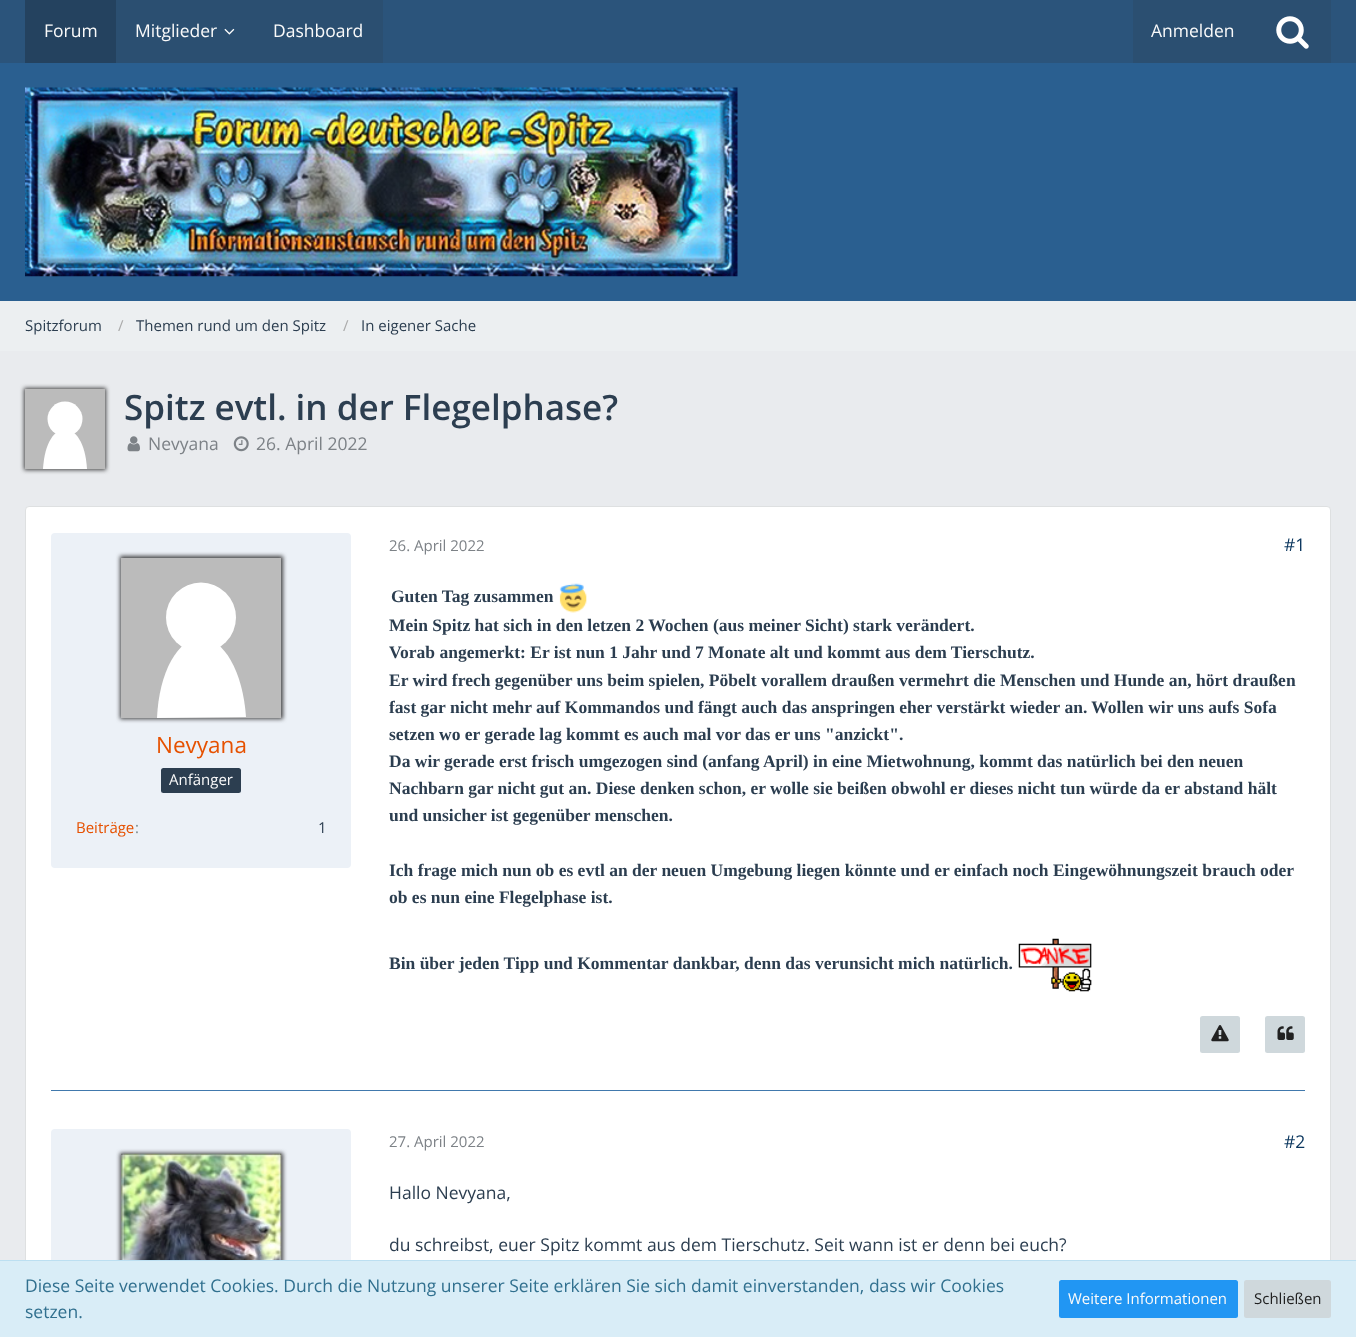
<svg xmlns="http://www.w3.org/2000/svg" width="1356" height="1337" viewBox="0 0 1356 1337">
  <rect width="100%" height="100%" fill="rgb(236,239,241)"/>
  <rect x="0" y="63" width="1356" height="238" fill="rgb(42,95,144)"/>
  <rect x="0" y="0" width="1356" height="63" fill="rgb(43,84,123)"/>
  <rect x="25" y="0" width="91" height="63" fill="rgb(36,66,95)"/>
  <text x="44" y="37" font-family="Open Sans" font-size="17.5" fill="rgb(250,250,250)">Forum</text>
  <rect x="116" y="0" width="267" height="63" fill="rgb(43,79,113)"/>
  <text x="135" y="37" font-family="Open Sans" font-size="17.5" fill="rgb(250,250,250)">Mitglieder</text>
  <image x="224" y="28" width="11" height="7" href="pic1.png"/>
  <text x="273" y="37" font-family="Open Sans" font-size="17.5" fill="rgb(250,250,250)">Dashboard</text>
  <rect x="1133" y="0" width="198" height="63" fill="rgb(43,79,113)"/>
  <text x="1151" y="37" font-family="Open Sans" font-size="17.5" fill="rgb(250,250,250)">Anmelden</text>
  <image x="1276" y="16" width="33" height="33" href="pic2.png"/>
  <image x="25" y="87" width="713" height="190" href="pic3.png"/>
  <text x="25" y="331" font-family="Open Sans" font-size="15" fill="rgb(44,62,80)">Spitzforum</text>
  <text x="118" y="331" font-family="Open Sans" font-size="15" fill="rgb(170,170,170)">/</text>
  <text x="136" y="331" font-family="Open Sans" font-size="15" fill="rgb(44,62,80)">Themen rund um den Spitz</text>
  <text x="343" y="331" font-family="Open Sans" font-size="15" fill="rgb(170,170,170)">/</text>
  <text x="361" y="331" font-family="Open Sans" font-size="15" fill="rgb(44,62,80)">In eigener Sache</text>
  <rect x="0" y="351" width="1356" height="909" fill="rgb(233,235,238)"/>
  <rect x="24" y="388" width="82" height="82" fill="rgb(64,64,65)" filter="blur(2px)"/>
  <rect x="25" y="389" width="80" height="80" fill="rgb(187,187,187)"/>
  <path d="M43 469C46 416 84 416 87 469" fill="rgb(255,255,255)"/>
  <circle cx="65" cy="419" r="17.5" fill="rgb(255,255,255)"/>
  <text x="124" y="420" font-family="Open Sans" font-size="35" font-weight="600" fill="rgb(44,62,80)">Spitz evtl. in der Flegelphase?</text>
  <image x="127" y="436" width="13" height="16" href="pic4.png"/>
  <text x="148" y="450" font-family="Open Sans" font-size="17.5" fill="rgb(125,130,135)">Nevyana</text>
  <image x="233" y="436" width="16" height="16" href="pic5.png"/>
  <text x="256" y="450" font-family="Open Sans" font-size="17.5" fill="rgb(125,130,135)">26. April 2022</text>
  <rect x="25.5" y="506.5" width="1305" height="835" rx="3.5" fill="rgb(255,255,255)" stroke="rgb(222,224,225)"/>
  <rect x="51" y="1090" width="1254" height="1" fill="rgb(65,121,173)"/>
  <rect x="51" y="533" width="300" height="335" rx="4" fill="rgb(236,241,247)"/>
  <rect x="120" y="556" width="163" height="163" fill="rgb(64,64,65)" filter="blur(2px)"/>
  <rect x="121" y="558" width="160" height="160" fill="rgb(187,187,187)"/>
  <path d="M157 718C159 672 178 638 201 638C224 638 243 672 246 717" fill="rgb(255,255,255)"/>
  <circle cx="201" cy="617.5" r="35" fill="rgb(255,255,255)"/>
  <text x="156" y="753" font-family="Open Sans" font-size="22.5" fill="rgb(230,81,0)">Nevyana</text>
  <rect x="161" y="768" width="80" height="25" rx="2.5" fill="rgb(44,62,80)"/>
  <text x="169" y="785" font-family="Open Sans" font-size="15" fill="rgb(250,250,250)">Anfänger</text>
  <text x="76" y="833" font-family="Open Sans" font-size="15" fill="rgb(230,81,0)">Beiträge</text>
  <text x="135" y="833" font-family="Open Sans" font-size="15" fill="rgb(127,140,141)">:</text>
  <text x="318" y="833" font-family="Open Sans" font-size="15" fill="rgb(44,62,80)">1</text>
  <text x="389" y="551" font-family="Open Sans" font-size="15" fill="rgb(125,130,135)">26. April 2022</text>
  <text x="1284" y="551" font-family="Open Sans" font-size="17.5" fill="rgb(9,53,93)">#1</text>
  <text x="391" y="602" font-family="Liberation Serif" font-size="17.5" font-weight="bold" fill="rgb(44,62,80)">Guten Tag zusammen</text>
  <image x="559" y="583" width="28" height="30" href="pic6.png"/>
  <g font-family="Liberation Serif" font-size="17.5" font-weight="bold" fill="rgb(44,62,80)">
    <text>
      <tspan x="389" y="631">Mein Spitz hat sich in den letzen 2 Wochen (aus meiner Sicht) stark verändert.</tspan>
      <tspan x="389" y="658">Vorab angemerkt: Er ist nun 1 Jahr und 7 Monate alt und kommt aus dem Tierschutz.</tspan>
      <tspan x="389" y="686">Er wird frech gegenüber uns beim spielen, Pöbelt vorallem draußen vermehrt die Menschen und Hunde an, hört draußen</tspan>
      <tspan x="389" y="713">fast gar nicht mehr auf Kommandos und fängt auch das anspringen eher verstärkt wieder an. Wollen wir uns aufs Sofa</tspan>
      <tspan x="389" y="740">setzen wo er gerade lag kommt es auch mal vor das er uns "anzickt".</tspan>
      <tspan x="389" y="767">Da wir gerade erst frisch umgezogen sind (anfang April) in eine Mietwohnung, kommt das natürlich bei den neuen</tspan>
      <tspan x="389" y="794">Nachbarn gar nicht gut an. Diese denken schon, er wolle sie beißen obwohl er dieses nicht tun würde da er abstand hält</tspan>
      <tspan x="389" y="821">und unsicher ist gegenüber menschen.</tspan>
    </text>
    <text>
      <tspan x="389" y="876">Ich frage mich nun ob es evtl an der neuen Umgebung liegen könnte und er einfach noch Eingewöhnungszeit brauch oder</tspan>
      <tspan x="389" y="903">ob es nun eine Flegelphase ist.</tspan>
    </text>
    <text x="389" y="969">Bin über jeden Tipp und Kommentar dankbar, denn das verunsicht mich natürlich.</text>
  </g>
  <image x="1018" y="938" width="74" height="54" href="pic7.png"/>
  <rect x="1200" y="1016" width="40" height="37" rx="2.5" fill="rgb(207,216,220)"/>
  <image x="1211" y="1025" width="18" height="17" href="pic8.png"/>
  <rect x="1265" y="1016" width="40" height="37" rx="2.5" fill="rgb(207,216,220)"/>
  <image x="1277" y="1026" width="17" height="14" href="pic9.png"/>
  <rect x="51" y="1129" width="300" height="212" rx="4" fill="rgb(236,241,247)"/>
  <rect x="120" y="1153" width="163" height="162" fill="rgb(64,64,65)" filter="blur(2px)"/>
  <image x="121" y="1153" width="161" height="107" href="pic10.png"/>
  <text x="389" y="1147" font-family="Open Sans" font-size="15" fill="rgb(125,130,135)">27. April 2022</text>
  <text x="1284" y="1148" font-family="Open Sans" font-size="17.5" fill="rgb(9,53,93)">#2</text>
  <g font-family="Open Sans" font-size="17.5" fill="rgb(44,62,80)">
    <text x="389" y="1199">Hallo Nevyana,</text>
    <text x="389" y="1251">du schreibst, euer Spitz kommt aus dem Tierschutz. Seit wann ist er denn bei euch?</text>
  </g>
  <rect x="0" y="1261" width="1356" height="76" fill="rgb(217,237,247)"/>
  <rect x="0" y="1260" width="1356" height="1" fill="rgb(188,223,241)"/>
  <g font-family="Open Sans" font-size="17.5" fill="rgb(49,112,143)">
    <text>
      <tspan x="25" y="1292">Diese Seite verwendet Cookies. Durch die Nutzung unserer Seite erklären Sie sich damit einverstanden, dass wir Cookies</tspan>
      <tspan x="25" y="1318">setzen.</tspan>
    </text>
  </g>
  <rect x="1059" y="1280" width="179" height="38" rx="2.5" fill="rgb(33,150,243)"/>
  <text x="1068" y="1304" font-family="Open Sans" font-size="15" fill="rgb(250,250,250)">Weitere Informationen</text>
  <rect x="1244" y="1280" width="87" height="38" rx="2.5" fill="rgb(207,216,220)"/>
  <text x="1254" y="1304" font-family="Open Sans" font-size="15" fill="rgb(33,33,33)">Schließen</text>
</svg>
